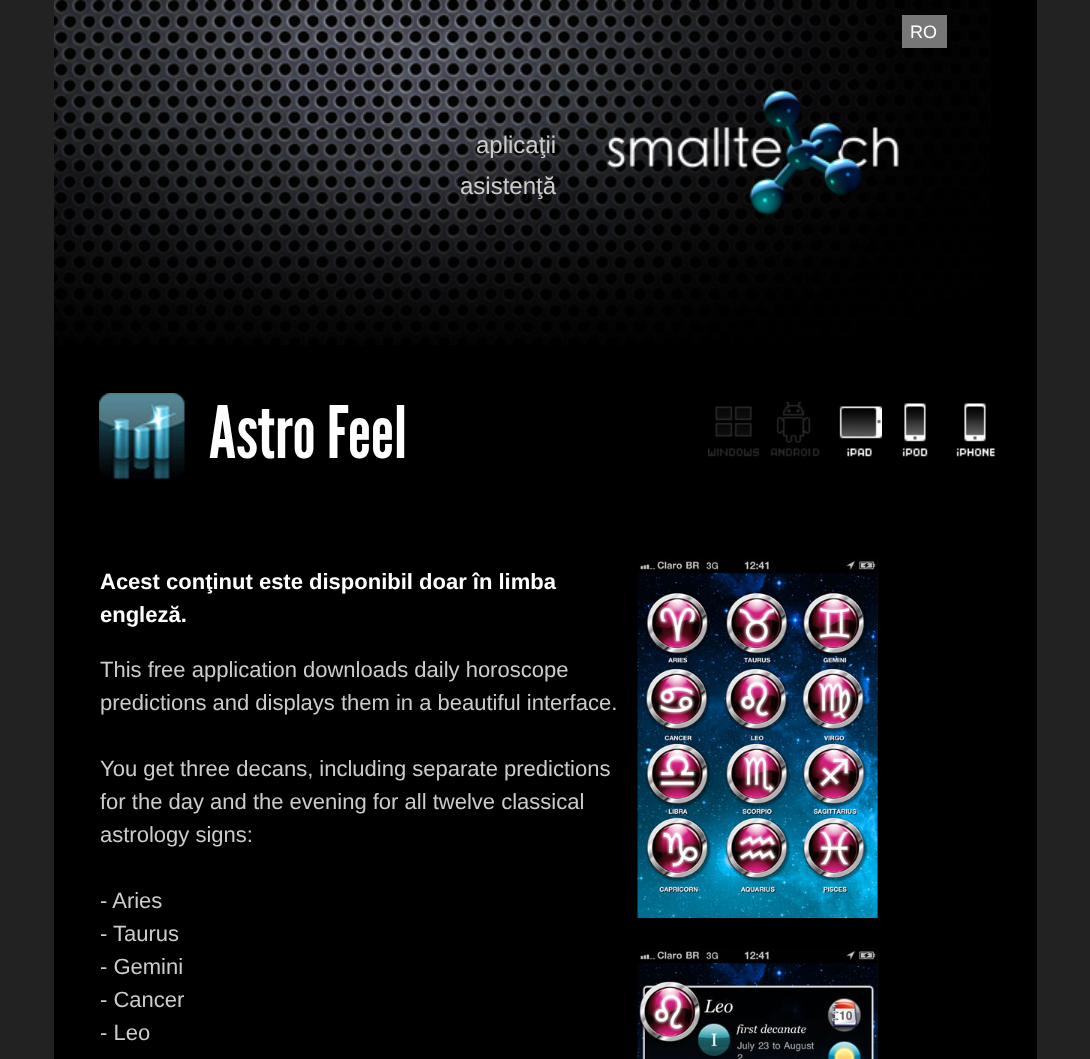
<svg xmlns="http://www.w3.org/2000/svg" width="1090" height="1059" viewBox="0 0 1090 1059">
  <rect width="100%" height="100%" fill="rgb(34,34,34)"/>
  <rect x="54" y="0" width="983" height="1059" fill="rgb(0,0,0)"/>
  <image x="54" y="0" width="937" height="345" href="pic1.png"/>
  <rect x="902" y="15" width="45" height="33" fill="rgb(119,119,119)"/>
  <text x="910" y="38" font-family="Liberation Sans" font-size="18" fill="rgb(255,255,255)">RO</text>
  <g font-family="Liberation Sans" font-size="24" fill="rgb(204,204,204)">
    <text x="476" y="153">aplicaţii</text>
    <text x="460" y="194">asistenţă</text>
  </g>
  <image x="607" y="89" width="292" height="126" href="pic2.png"/>
  <image x="99" y="393" width="86" height="86" href="pic3.png"/>
  <text x="209" y="458" font-family="League Gothic" font-size="72" fill="rgb(255,255,255)">Astro Feel</text>
  <image x="708" y="406" width="52" height="51" href="pic4.png"/>
  <image x="770" y="401" width="50" height="56" href="pic5.png"/>
  <image x="839" y="406" width="43" height="51" href="pic6.png"/>
  <image x="902" y="403" width="26" height="54" href="pic7.png"/>
  <image x="956" y="403" width="39" height="54" href="pic8.png"/>
  <g font-family="Liberation Sans" font-size="22" font-weight="bold" fill="rgb(255,255,255)">
    <text>
      <tspan x="100" y="589">Acest conţinut este disponibil doar în limba</tspan>
      <tspan x="100" y="622">engleză.</tspan>
    </text>
  </g>
  <g font-family="Liberation Sans" font-size="22" fill="rgb(204,204,204)">
    <text>
      <tspan x="100" y="677">This free application downloads daily horoscope</tspan>
      <tspan x="100" y="710">predictions and displays them in a beautiful interface.</tspan>
    </text>
    <text>
      <tspan x="100" y="776">You get three decans, including separate predictions</tspan>
      <tspan x="100" y="809">for the day and the evening for all twelve classical</tspan>
      <tspan x="100" y="842">astrology signs:</tspan>
    </text>
    <text>
      <tspan x="100" y="908">- Aries</tspan>
      <tspan x="100" y="941">- Taurus</tspan>
      <tspan x="100" y="974">- Gemini</tspan>
      <tspan x="100" y="1007">- Cancer</tspan>
      <tspan x="100" y="1040">- Leo</tspan>
    </text>
  </g>
  <rect x="877" y="558" width="1" height="360" fill="rgb(17,17,17)"/>
  <image x="637" y="558" width="241" height="360" href="pic9.png"/>
  <rect x="877" y="948" width="1" height="111" fill="rgb(17,17,17)"/>
  <image x="637" y="948" width="241" height="111" href="pic10.png"/>
</svg>
